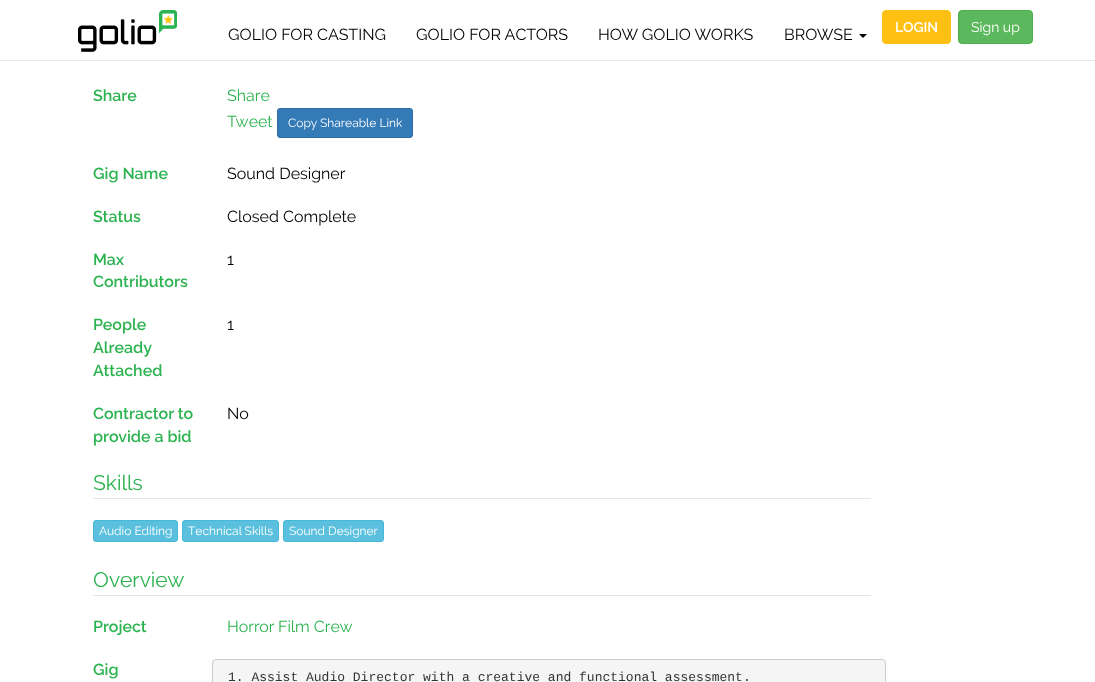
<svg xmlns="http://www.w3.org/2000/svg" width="1095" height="682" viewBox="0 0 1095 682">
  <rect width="100%" height="100%" fill="rgb(255,255,255)"/>
  <rect x="0" y="60" width="1095" height="1" fill="rgb(231,231,231)"/>
  <image x="78" y="10" width="99" height="42" href="pic1.png"/>
  <g font-family="Raleway" font-size="16" fill="rgb(0,0,0)">
    <text x="228" y="40">GOLIO FOR CASTING</text>
    <text x="416" y="40">GOLIO FOR ACTORS</text>
    <text x="598" y="40">HOW GOLIO WORKS</text>
    <text x="784" y="40">BROWSE</text>
  </g>
  <path d="M859 34H867L863 38Z" fill="rgb(0,0,0)"/>
  <rect x="882.5" y="10.5" width="68" height="33" rx="3.5" fill="rgb(253,192,19)" stroke="rgb(253,192,19)"/>
  <text x="895" y="32" font-family="Raleway" font-size="14" font-weight="600" fill="rgb(255,255,255)">LOGIN</text>
  <rect x="958.5" y="10.5" width="74" height="33" rx="3.5" fill="rgb(92,184,92)" stroke="rgb(76,174,76)"/>
  <text x="971" y="32" font-family="Raleway" font-size="14" fill="rgb(255,255,255)">Sign up</text>
  <text x="93" y="101" font-family="Raleway" font-size="16" font-weight="600" fill="rgb(44,179,80)">Share</text>
  <g font-family="Raleway" font-size="16" fill="rgb(44,179,80)">
    <text>
      <tspan x="227" y="101">Share</tspan>
      <tspan x="227" y="127">Tweet</tspan>
    </text>
  </g>
  <rect x="277.5" y="108.5" width="135" height="29" rx="2.5" fill="rgb(51,122,183)" stroke="rgb(46,109,164)"/>
  <text x="288" y="127" font-family="Raleway" font-size="12" fill="rgb(255,255,255)">Copy Shareable Link</text>
  <text x="93" y="179" font-family="Raleway" font-size="16" font-weight="600" fill="rgb(44,179,80)">Gig Name</text>
  <text x="227" y="179" font-family="Raleway" font-size="16" fill="rgb(0,0,0)">Sound Designer</text>
  <text x="93" y="222" font-family="Raleway" font-size="16" font-weight="600" fill="rgb(44,179,80)">Status</text>
  <text x="227" y="222" font-family="Raleway" font-size="16" fill="rgb(0,0,0)">Closed Complete</text>
  <g font-family="Raleway" font-size="16" font-weight="600" fill="rgb(44,179,80)">
    <text>
      <tspan x="93" y="265">Max</tspan>
      <tspan x="93" y="287">Contributors</tspan>
    </text>
  </g>
  <text x="227" y="265" font-family="Raleway" font-size="16" fill="rgb(0,0,0)">1</text>
  <g font-family="Raleway" font-size="16" font-weight="600" fill="rgb(44,179,80)">
    <text>
      <tspan x="93" y="330">People</tspan>
      <tspan x="93" y="353">Already</tspan>
      <tspan x="93" y="376">Attached</tspan>
    </text>
  </g>
  <text x="227" y="330" font-family="Raleway" font-size="16" fill="rgb(0,0,0)">1</text>
  <g font-family="Raleway" font-size="16" font-weight="600" fill="rgb(44,179,80)">
    <text>
      <tspan x="93" y="419">Contractor to</tspan>
      <tspan x="93" y="442">provide a bid</tspan>
    </text>
  </g>
  <text x="227" y="419" font-family="Raleway" font-size="16" fill="rgb(0,0,0)">No</text>
  <rect x="93" y="498" width="778" height="1" fill="rgb(229,229,229)"/>
  <text x="93" y="490" font-family="Raleway" font-size="21" fill="rgb(44,179,80)">Skills</text>
  <rect x="93.5" y="520.5" width="84" height="21" rx="2.5" fill="rgb(91,192,222)" stroke="rgb(70,184,218)"/>
  <text x="99" y="535" font-family="Raleway" font-size="12" fill="rgb(255,255,255)">Audio Editing</text>
  <rect x="182.5" y="520.5" width="96" height="21" rx="2.5" fill="rgb(91,192,222)" stroke="rgb(70,184,218)"/>
  <text x="188" y="535" font-family="Raleway" font-size="12" fill="rgb(255,255,255)">Technical Skills</text>
  <rect x="283.5" y="520.5" width="100" height="21" rx="2.5" fill="rgb(91,192,222)" stroke="rgb(70,184,218)"/>
  <text x="289" y="535" font-family="Raleway" font-size="12" fill="rgb(255,255,255)">Sound Designer</text>
  <rect x="93" y="595" width="778" height="1" fill="rgb(229,229,229)"/>
  <text x="93" y="587" font-family="Raleway" font-size="21" fill="rgb(44,179,80)">Overview</text>
  <text x="93" y="632" font-family="Raleway" font-size="16" font-weight="600" fill="rgb(44,179,80)">Project</text>
  <text x="227" y="632" font-family="Raleway" font-size="16" fill="rgb(44,179,80)">Horror Film Crew</text>
  <text x="93" y="675" font-family="Raleway" font-size="16" font-weight="600" fill="rgb(44,179,80)">Gig</text>
  <rect x="212.5" y="659.5" width="673" height="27" rx="3.5" fill="rgb(245,245,245)" stroke="rgb(204,204,204)"/>
  <text x="228" y="681" font-family="Liberation Mono" font-size="13" fill="rgb(51,51,51)">1. Assist Audio Director with a creative and functional assessment.</text>
</svg>
